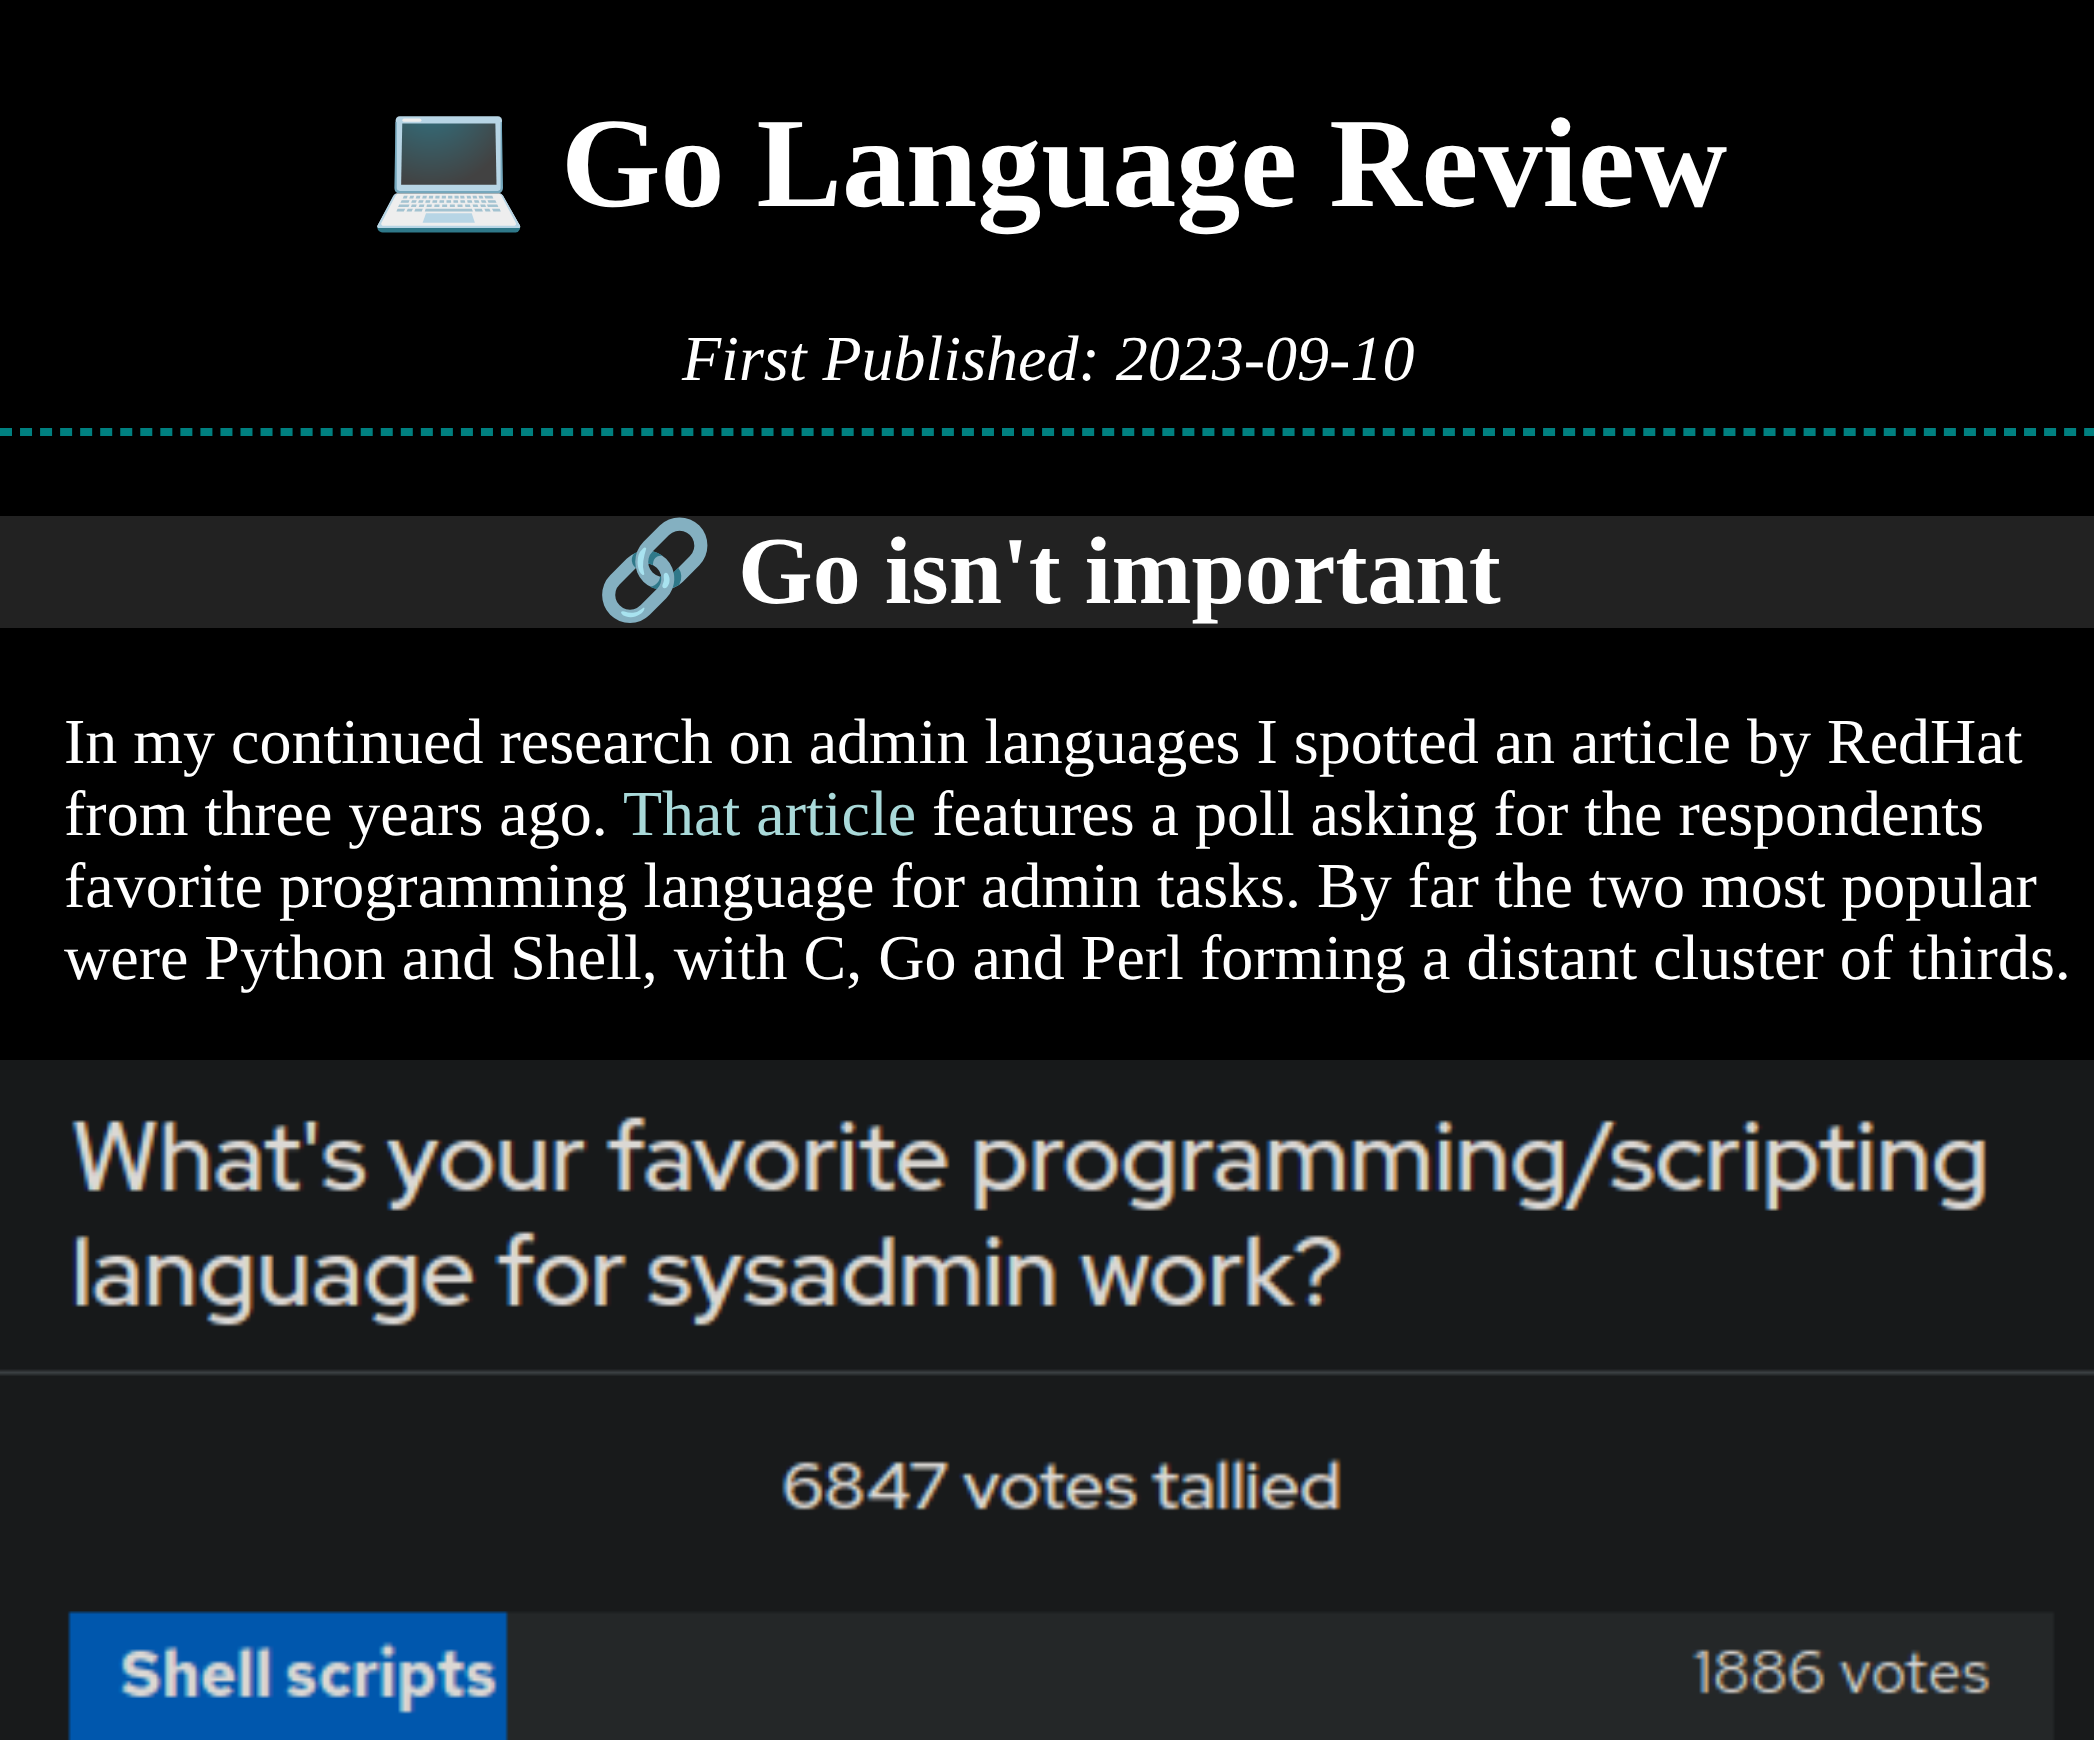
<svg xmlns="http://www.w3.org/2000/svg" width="2094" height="1740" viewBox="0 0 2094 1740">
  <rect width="100%" height="100%" fill="rgb(0,0,0)"/>
  <text x="369" y="206" font-family="Noto Color Emoji" font-size="128" font-weight="bold" fill="rgb(255,255,255)">💻</text>
  <text x="561" y="206" font-family="Liberation Serif" font-size="128" font-weight="bold" fill="rgb(255,255,255)">Go Language Review</text>
  <text x="682" y="380" font-family="Liberation Serif" font-size="64" font-style="italic" fill="rgb(255,255,255)">First Published: 2023-09-10</text>
  <path d="M0 430H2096" fill="none" stroke="rgb(0,128,128)" stroke-width="4" stroke-dasharray="12 8.04"/>
  <rect x="2092" y="428" width="2" height="8" fill="rgb(0,128,128)"/>
  <path d="M0 434H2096" fill="none" stroke="rgb(0,128,128)" stroke-width="4" stroke-dasharray="12 8.04"/>
  <rect x="0" y="516" width="2094" height="112" fill="rgb(34,34,34)"/>
  <text x="595" y="603" font-family="'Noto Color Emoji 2'" font-size="96" font-weight="bold" fill="rgb(95,116,116)">🔗</text>
  <text x="738" y="603" font-family="Liberation Serif" font-size="96" font-weight="bold" fill="rgb(255,255,255)">Go isn't important</text>
  <g font-family="Liberation Serif" font-size="64" fill="rgb(255,255,255)">
    <text>
      <tspan x="64" y="763">In my continued research on admin languages I spotted an article by RedHat</tspan>
      <tspan x="64" y="835">from three years ago.</tspan>
    </text>
  </g>
  <text x="623" y="835" font-family="Liberation Serif" font-size="64" fill="rgb(169,217,217)">That article</text>
  <g font-family="Liberation Serif" font-size="64" fill="rgb(255,255,255)">
    <text x="932" y="835">features a poll asking for the respondents</text>
    <text>
      <tspan x="64" y="907">favorite programming language for admin tasks. By far the two most popular</tspan>
      <tspan x="64" y="979">were Python and Shell, with C, Go and Perl forming a distant cluster of thirds.</tspan>
    </text>
  </g>
  <image x="0" y="1060" width="2094" height="680" href="pic1.png"/>
</svg>
